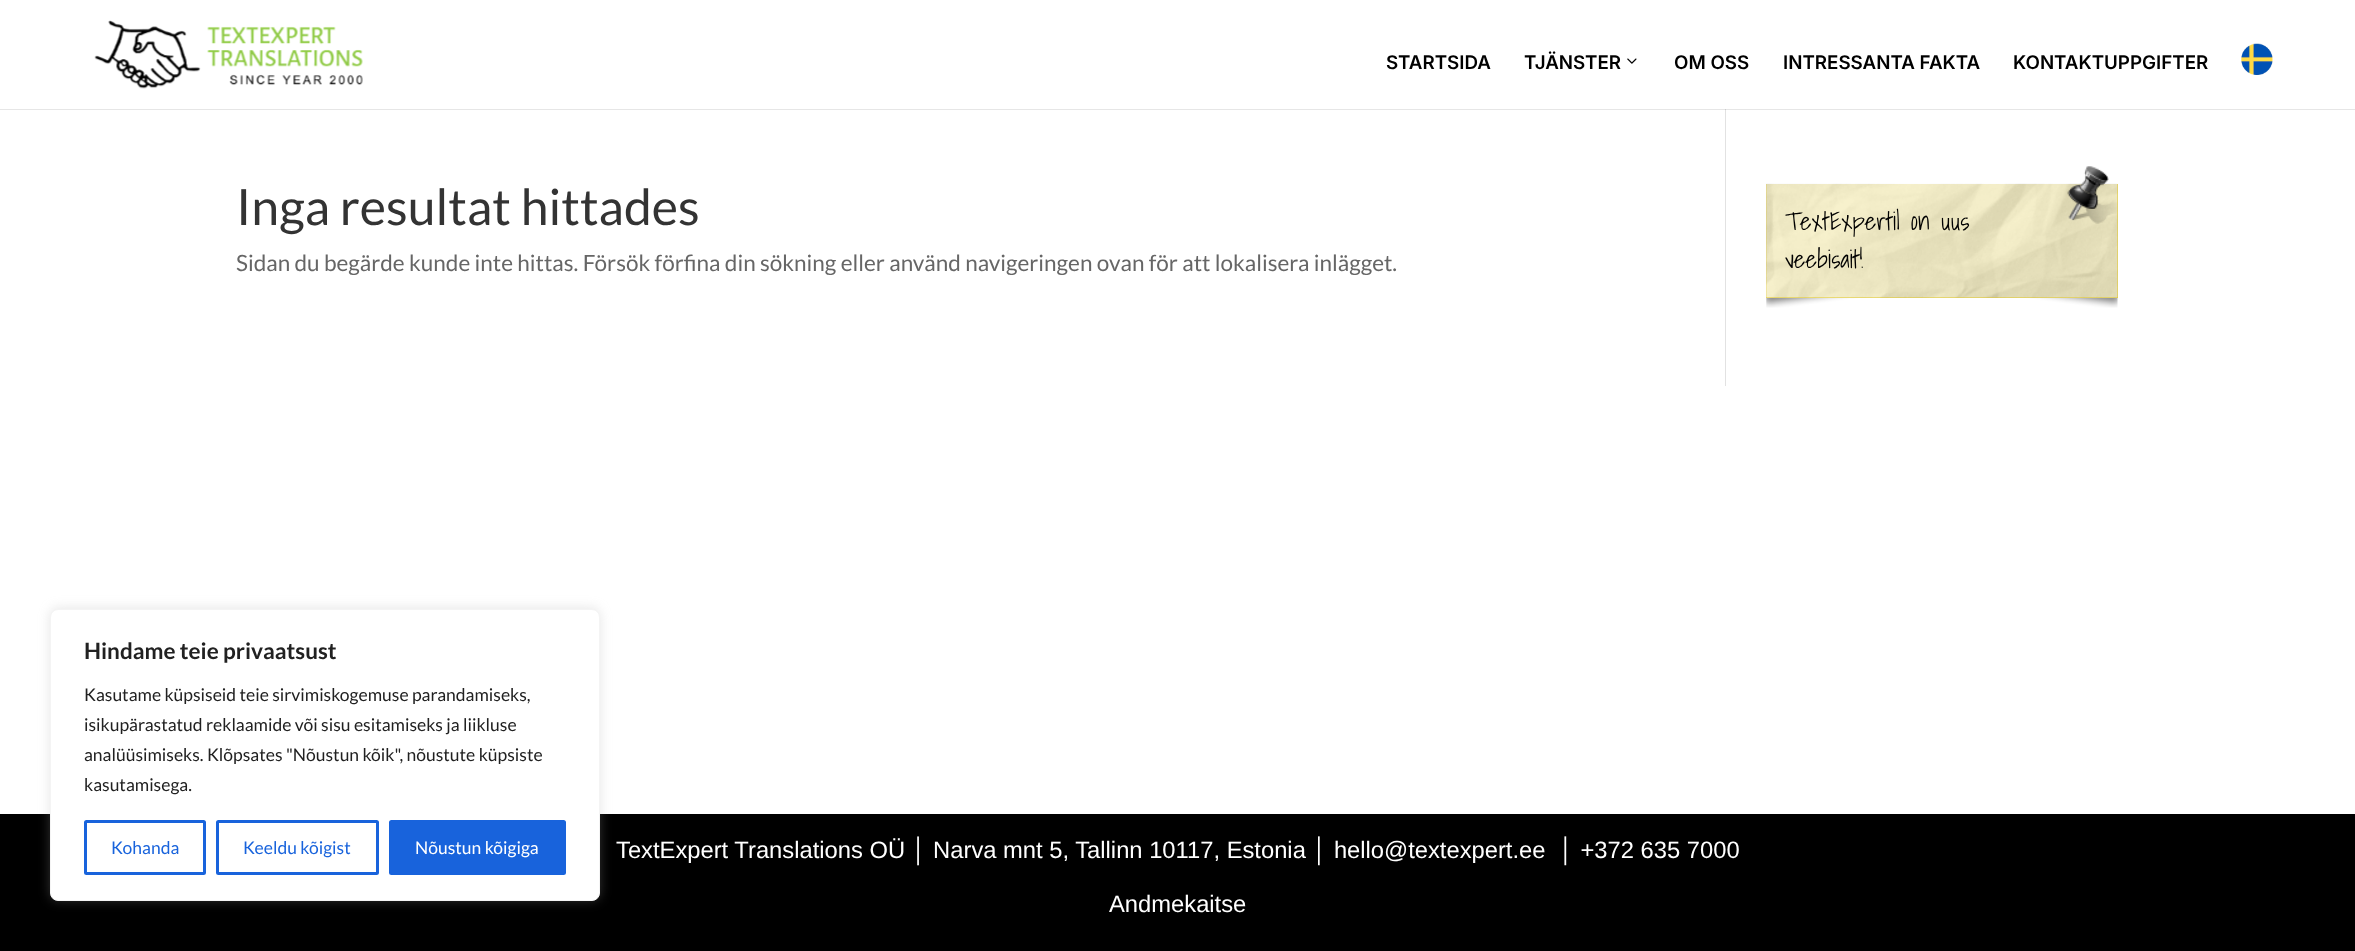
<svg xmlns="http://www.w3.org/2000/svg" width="2355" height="951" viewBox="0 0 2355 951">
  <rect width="100%" height="100%" fill="rgb(255,255,255)"/>
  <rect x="0" y="109" width="2355" height="1" fill="rgb(230,230,230)"/>
  <image x="94" y="20" width="269" height="69" href="pic1.png"/>
  <g font-family="Inter" font-size="18.75" font-weight="600" fill="rgb(0,0,0)">
    <text x="1386" y="69">STARTSIDA</text>
    <text x="1524" y="69">TJÄNSTER</text>
  </g>
  <image x="1627" y="58" width="10" height="6" href="pic2.png"/>
  <g font-family="Inter" font-size="18.75" font-weight="600" fill="rgb(0,0,0)">
    <text x="1674" y="69">OM OSS</text>
    <text x="1783" y="69">INTRESSANTA FAKTA</text>
    <text x="2013" y="69">KONTAKTUPPGIFTER</text>
  </g>
  <image x="2241" y="43" width="32" height="32" href="pic3.png"/>
  <rect x="1725" y="109" width="1" height="277" fill="rgb(226,226,226)"/>
  <rect x="1725" y="109" width="1" height="1" fill="rgb(203,203,203)"/>
  <text x="236" y="225" font-family="Lato" font-size="50" fill="rgb(51,51,51)">Inga resultat hittades</text>
  <text x="236" y="271" font-family="Lato" font-size="22.5" fill="rgb(102,102,102)">Sidan du begärde kunde inte hittas. Försök förfina din sökning eller använd navigeringen ovan för att lokalisera inlägget.</text>
  <image x="1766" y="298" width="352" height="10" href="pic4.png"/>
  <rect x="1766" y="184" width="352" height="114" fill="rgb(225,200,34)"/>
  <image x="1766" y="183" width="352" height="115" href="pic6.png"/>
  <image x="2067" y="166" width="50" height="58" href="pic5.png"/>
  <g font-family="Shadows Into Light" font-size="25" fill="rgb(0,0,0)">
    <text>
      <tspan x="1785" y="230">TextExpertil on uus</tspan>
      <tspan x="1785" y="268">veebisait!</tspan>
    </text>
  </g>
  <rect x="0" y="814" width="2355" height="137" fill="rgb(0,0,0)"/>
  <g font-family="Liberation Sans" font-size="23.75" fill="rgb(255,255,255)">
    <text x="616" y="858">TextExpert Translations OÜ │ Narva mnt 5, Tallinn 10117, Estonia │ hello@textexpert.ee</text>
    <text x="1559" y="858">│ +372 635 7000</text>
    <text x="1109" y="912">Andmekaitse</text>
  </g>
  <rect x="50" y="608" width="550" height="292" rx="8" fill="rgba(172,171,171,0.3)" filter="blur(6px)"/>
  <rect x="50.5" y="609.5" width="549" height="291" rx="7.5" fill="rgb(255,255,255)" stroke="rgb(244,244,244)"/>
  <text x="84" y="659" font-family="Lato" font-size="22.5" font-weight="bold" fill="rgb(33,33,33)">Hindame teie privaatsust</text>
  <g font-family="Lato" font-size="17.5" fill="rgb(33,33,33)">
    <text>
      <tspan x="84" y="701">Kasutame küpsiseid teie sirvimiskogemuse parandamiseks,</tspan>
      <tspan x="84" y="731">isikupärastatud reklaamide või sisu esitamiseks ja liikluse</tspan>
      <tspan x="84" y="761">analüüsimiseks. Klõpsates "Nõustun kõik", nõustute küpsiste</tspan>
      <tspan x="84" y="791">kasutamisega.</tspan>
    </text>
  </g>
  <rect x="85.5" y="821.5" width="119" height="52" rx="1" fill="none" stroke="rgb(24,99,220)" stroke-width="3"/>
  <text x="111" y="854" font-family="Lato" font-size="17.5" fill="rgb(24,99,220)">Kohanda</text>
  <rect x="217.5" y="821.5" width="160" height="52" rx="1" fill="none" stroke="rgb(24,99,220)" stroke-width="3"/>
  <text x="243" y="854" font-family="Lato" font-size="17.5" fill="rgb(24,99,220)">Keeldu kõigist</text>
  <rect x="390.5" y="821.5" width="174" height="52" rx="1" fill="rgb(24,99,220)" stroke="rgb(24,99,220)" stroke-width="3"/>
  <text x="415" y="854" font-family="Lato" font-size="17.5" fill="rgb(255,255,255)">Nõustun kõigiga</text>
</svg>
